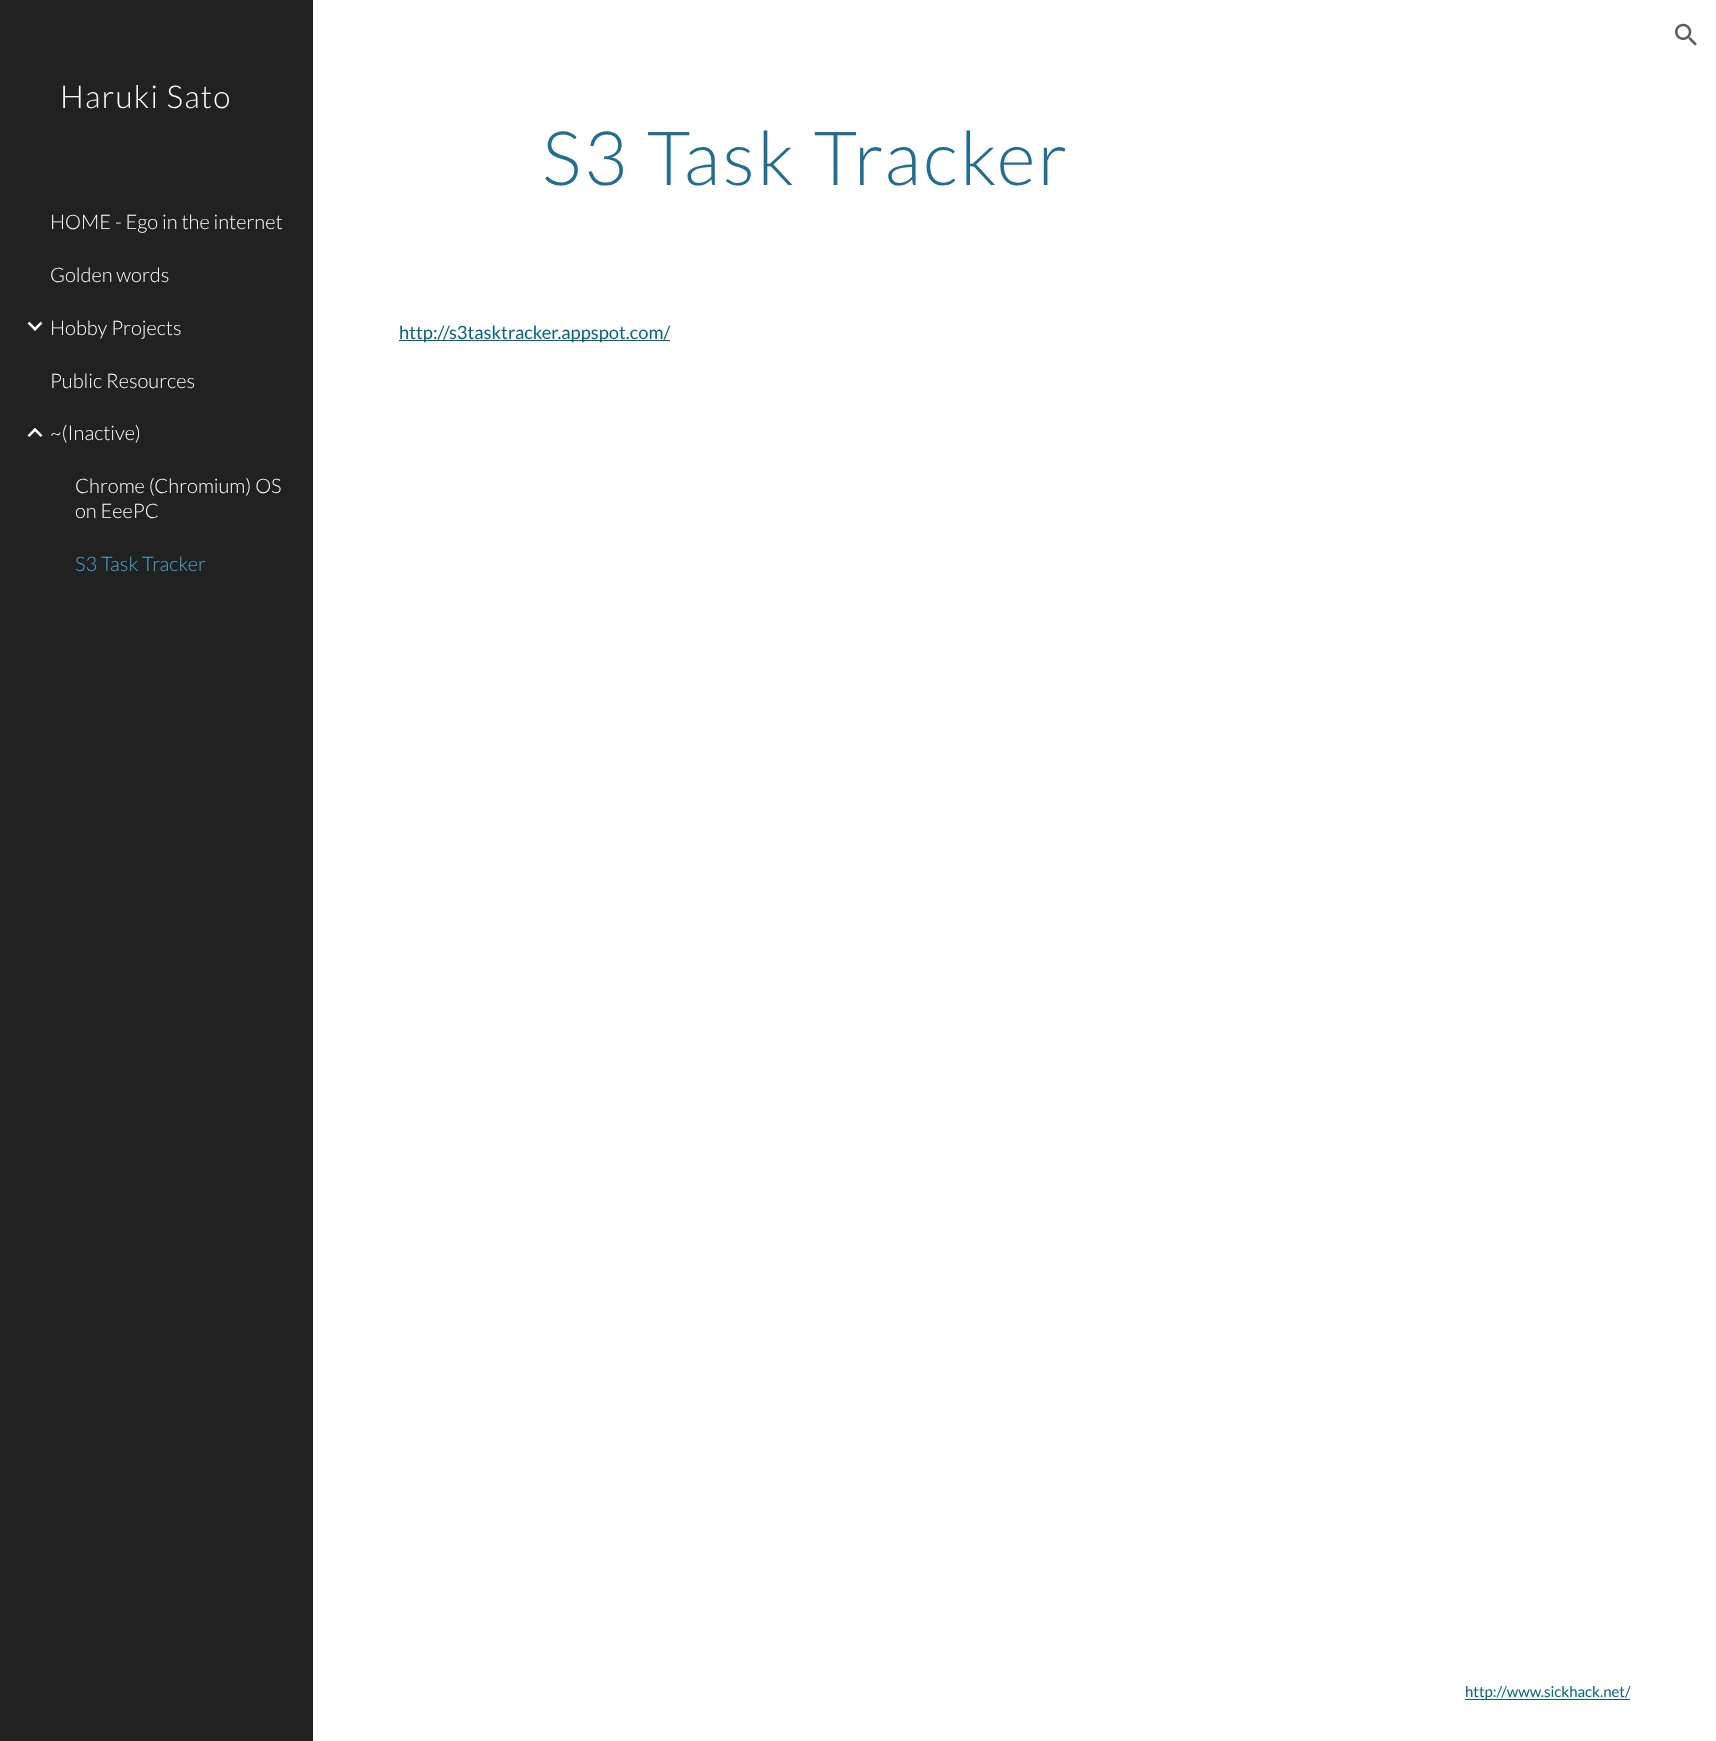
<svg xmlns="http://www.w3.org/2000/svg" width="1716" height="1741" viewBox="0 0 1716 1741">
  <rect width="100%" height="100%" fill="rgb(255,255,255)"/>
  <image x="1675" y="23" width="22" height="23" href="pic1.png"/>
  <rect x="0" y="0" width="313" height="1741" fill="rgb(33,33,33)"/>
  <text x="60" y="108" font-family="Lato" font-size="31.5" font-weight="300" letter-spacing="1.25" fill="rgb(255,255,255)">Haruki Sato</text>
  <g font-family="Lato" font-size="20" font-weight="300" fill="rgb(255,255,255)">
    <text x="50" y="229">HOME - Ego in the internet</text>
    <text x="50" y="282">Golden words</text>
  </g>
  <image x="27" y="321" width="16" height="10" href="pic2.png"/>
  <g font-family="Lato" font-size="20" font-weight="300" fill="rgb(255,255,255)">
    <text x="50" y="335">Hobby Projects</text>
    <text x="50" y="388">Public Resources</text>
  </g>
  <image x="27" y="428" width="16" height="9" href="pic3.png"/>
  <g font-family="Lato" font-size="20" font-weight="300" fill="rgb(255,255,255)">
    <text x="50" y="440">~(Inactive)</text>
    <text>
      <tspan x="75" y="493">Chrome (Chromium) OS</tspan>
      <tspan x="75" y="518">on EeePC</tspan>
    </text>
  </g>
  <text x="75" y="571" font-family="Lato" font-size="20" font-weight="300" fill="rgb(73,170,212)">S3 Task Tracker</text>
  <text x="542" y="185" font-family="Lato" font-size="75" font-weight="300" letter-spacing="2.5" fill="rgb(34,110,147)">S3 Task Tracker</text>
  <rect x="399" y="340" width="271" height="1" fill="rgb(0,101,128)"/>
  <text x="399" y="339" font-family="Lato" font-size="18.3" fill="rgb(0,101,128)">http://s3tasktracker.appspot.com/</text>
  <rect x="1465" y="1699" width="165" height="1" fill="rgb(0,101,128)"/>
  <text x="1465" y="1697" font-family="Lato" font-size="15" fill="rgb(0,101,128)">http://www.sickhack.net/</text>
</svg>
